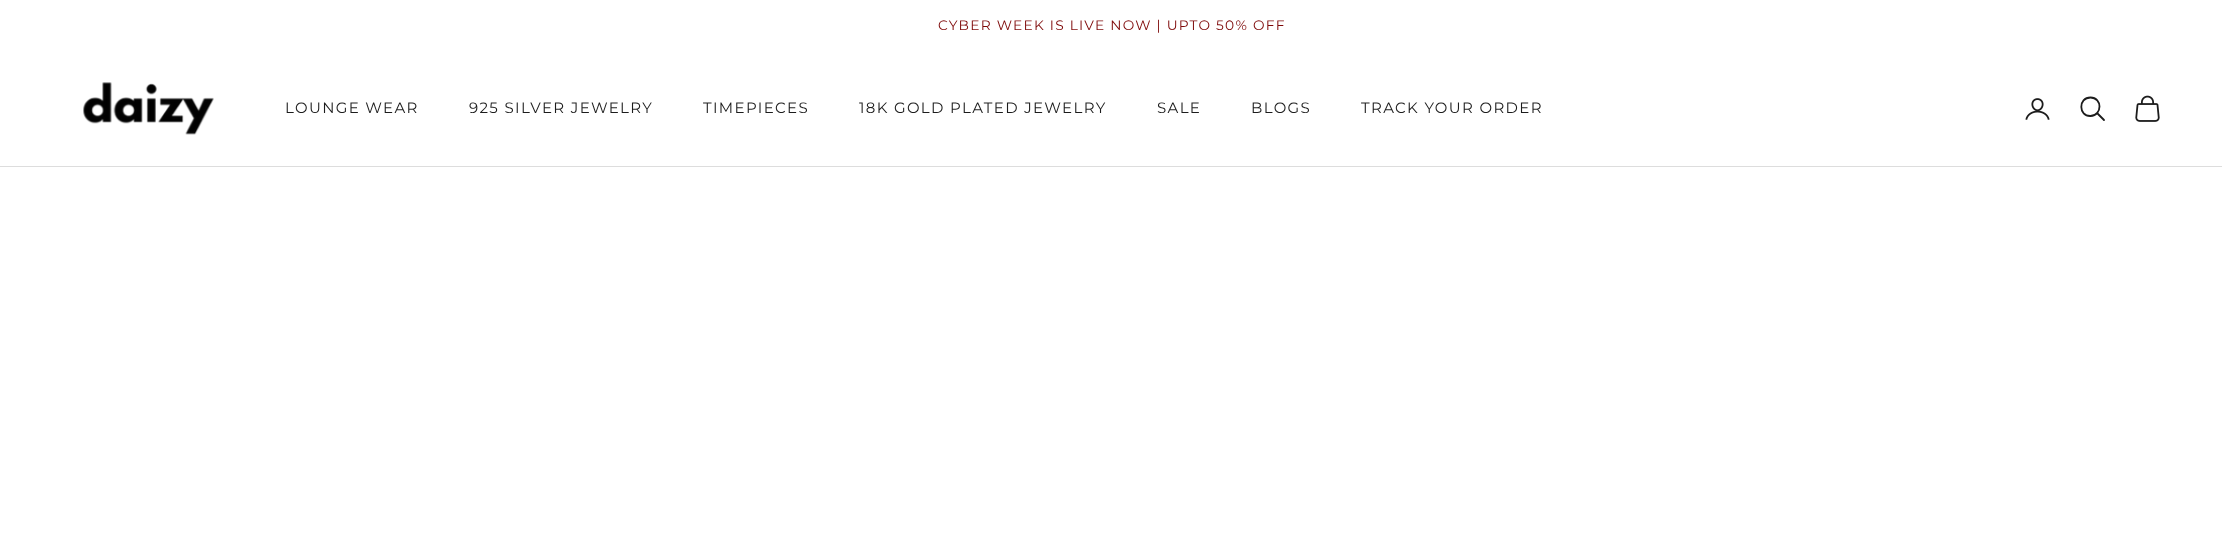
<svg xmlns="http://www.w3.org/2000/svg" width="2222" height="542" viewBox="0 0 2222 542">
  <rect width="100%" height="100%" fill="rgb(255,255,255)"/>
  <text x="938" y="30" font-family="Montserrat" font-size="13.75" letter-spacing="1.25" fill="rgb(126,8,8)">CYBER WEEK IS LIVE NOW | UPTO 50% OFF</text>
  <rect x="0" y="166" width="2222" height="1" fill="rgb(221,221,221)"/>
  <image x="83" y="82" width="131" height="53" href="pic1.png"/>
  <g font-family="Montserrat" font-size="15" letter-spacing="1.35" fill="rgb(28,28,28)">
    <text x="285" y="113">LOUNGE WEAR</text>
    <text x="469" y="113">925 SILVER JEWELRY</text>
    <text x="703" y="113">TIMEPIECES</text>
    <text x="859" y="113">18K GOLD PLATED JEWELRY</text>
    <text x="1157" y="113">SALE</text>
    <text x="1251" y="113">BLOGS</text>
    <text x="1361" y="113">TRACK YOUR ORDER</text>
  </g>
  <image x="2025" y="98" width="25" height="22" href="pic2.png"/>
  <path d="M2090.5 97.5C2078 97.5 2078.5 116.5 2090.5 116C2102.5 115.5 2102.5 97.5 2090.5 97.5Z" fill="none" stroke="rgb(28,28,28)" stroke-width="1.8"/>
  <path d="M2097.5 113.5L2104 120" fill="none" stroke="rgb(28,28,28)" stroke-width="1.8" stroke-linecap="round"/>
  <image x="2135" y="95" width="25" height="27" href="pic3.png"/>
</svg>
